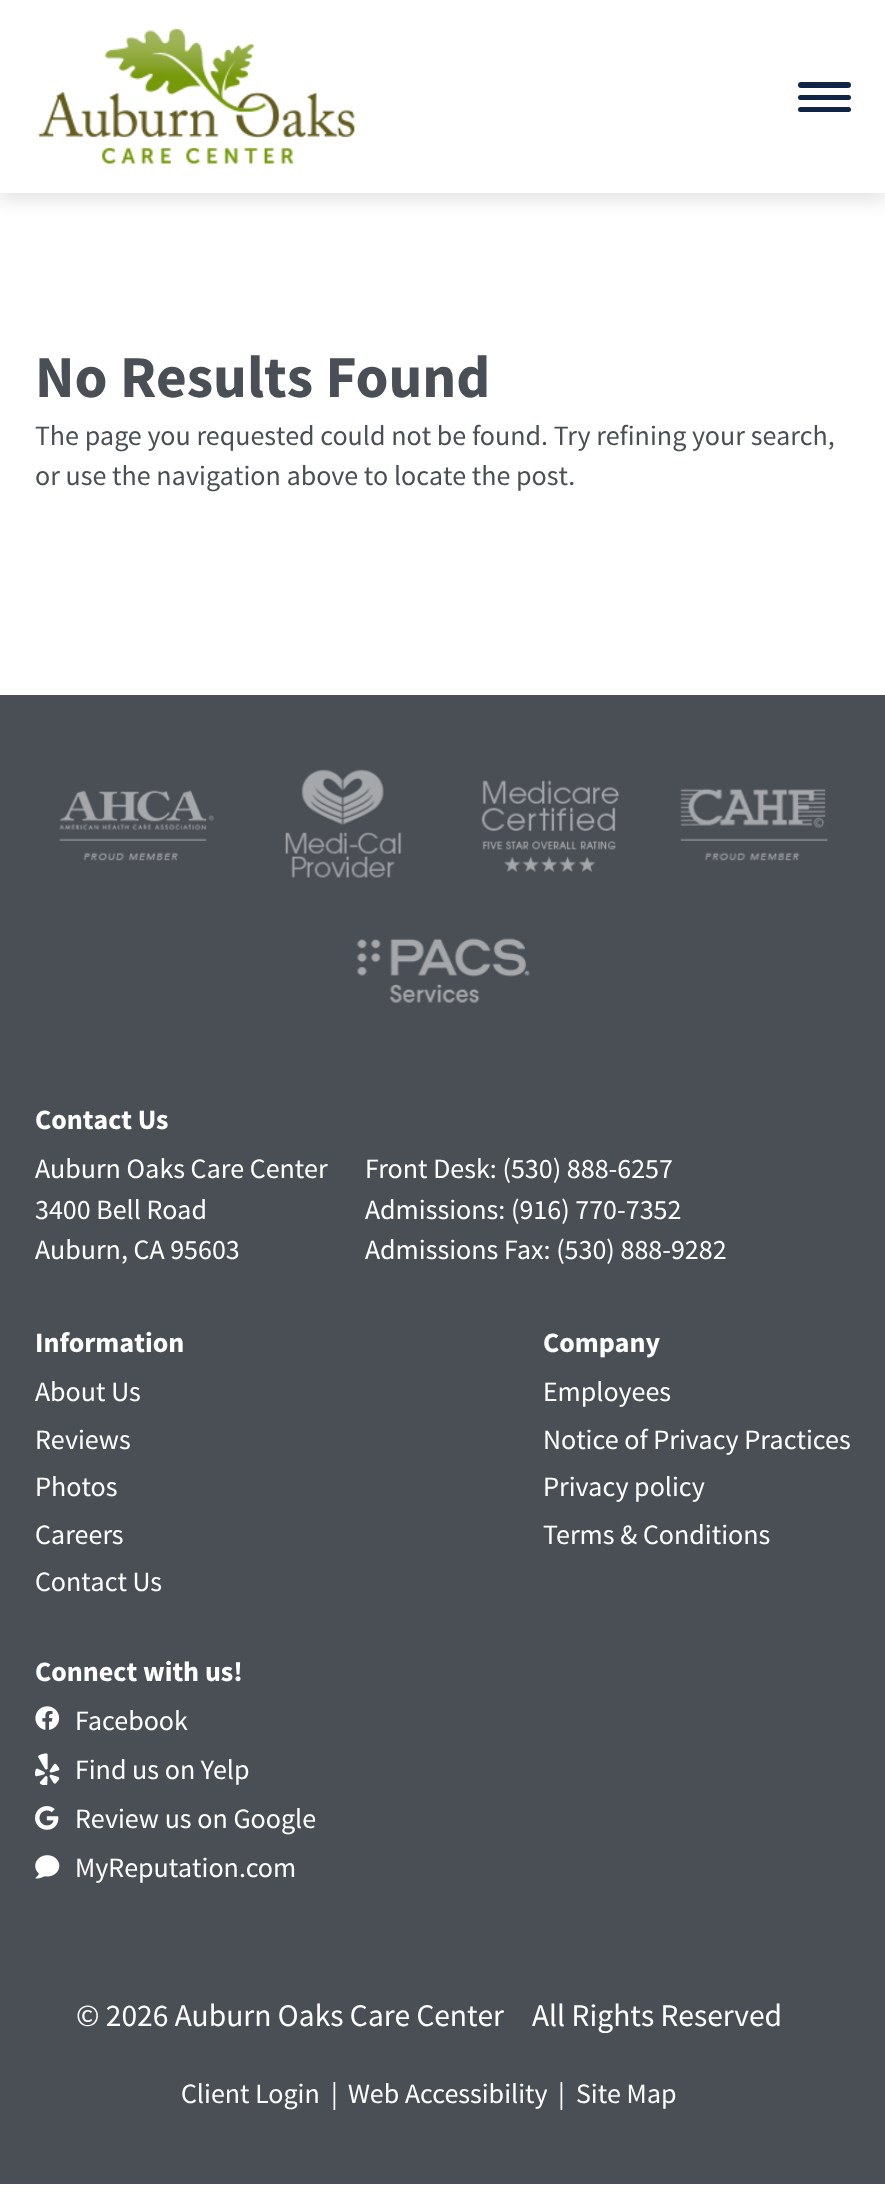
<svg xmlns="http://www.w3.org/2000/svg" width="885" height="2198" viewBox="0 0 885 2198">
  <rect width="100%" height="100%" fill="rgb(255,255,255)"/>
  <rect x="-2" y="5" width="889" height="196" fill="rgba(0,0,0,0.1)" filter="blur(9px)"/>
  <rect x="0" y="0" width="885" height="193" fill="rgb(255,255,255)"/>
  <image x="39" y="28" width="316" height="136" href="pic1.png"/>
  <rect x="798" y="82" width="53" height="6" rx="3" fill="rgb(17,37,73)"/>
  <rect x="798" y="95" width="53" height="5" rx="2.5" fill="rgb(17,37,73)"/>
  <rect x="798" y="107" width="53" height="5" rx="2.5" fill="rgb(17,37,73)"/>
  <text x="35" y="397" font-family="Source Sans Pro" font-size="59.5" font-weight="bold" fill="rgb(74,79,85)">No Results Found</text>
  <g font-family="Source Sans Pro" font-size="28" fill="rgb(74,79,85)">
    <text>
      <tspan x="35" y="445">The page you requested could not be found. Try refining your search,</tspan>
      <tspan x="35" y="485">or use the navigation above to locate the post.</tspan>
    </text>
  </g>
  <rect x="0" y="695" width="885" height="1489" fill="rgb(74,79,85)"/>
  <image x="59" y="790" width="155" height="71" href="pic2.png"/>
  <image x="285" y="769" width="117" height="109" href="pic3.png"/>
  <image x="481" y="780" width="139" height="93" href="pic4.png"/>
  <image x="680" y="788" width="148" height="73" href="pic5.png"/>
  <image x="356" y="938" width="174" height="65" href="pic6.png"/>
  <text x="35" y="1129" font-family="Source Sans Pro" font-size="28" font-weight="bold" fill="rgb(255,255,255)">Contact Us</text>
  <g font-family="Source Sans Pro" font-size="28" fill="rgb(255,255,255)">
    <text>
      <tspan x="35" y="1178">Auburn Oaks Care Center</tspan>
      <tspan x="35" y="1219">3400 Bell Road</tspan>
      <tspan x="35" y="1259">Auburn, CA 95603</tspan>
    </text>
    <text>
      <tspan x="365" y="1178">Front Desk: (530) 888-6257</tspan>
      <tspan x="365" y="1219">Admissions: (916) 770-7352</tspan>
      <tspan x="365" y="1259">Admissions Fax: (530) 888-9282</tspan>
    </text>
  </g>
  <text x="35" y="1352" font-family="Source Sans Pro" font-size="28" font-weight="bold" fill="rgb(255,255,255)">Information</text>
  <g font-family="Source Sans Pro" font-size="28" fill="rgb(255,255,255)">
    <text>
      <tspan x="35" y="1401">About Us</tspan>
      <tspan x="35" y="1449">Reviews</tspan>
      <tspan x="35" y="1496">Photos</tspan>
      <tspan x="35" y="1544">Careers</tspan>
      <tspan x="35" y="1591">Contact Us</tspan>
    </text>
  </g>
  <text x="543" y="1352" font-family="Source Sans Pro" font-size="28" font-weight="bold" fill="rgb(255,255,255)">Company</text>
  <g font-family="Source Sans Pro" font-size="28" fill="rgb(255,255,255)">
    <text>
      <tspan x="543" y="1401">Employees</tspan>
      <tspan x="543" y="1449">Notice of Privacy Practices</tspan>
      <tspan x="543" y="1496">Privacy policy</tspan>
      <tspan x="543" y="1544">Terms &amp; Conditions</tspan>
    </text>
  </g>
  <text x="35" y="1681" font-family="Source Sans Pro" font-size="28" font-weight="bold" fill="rgb(255,255,255)">Connect with us!</text>
  <image x="35" y="1706" width="25" height="24" href="pic7.png"/>
  <text x="75" y="1730" font-family="Source Sans Pro" font-size="28" fill="rgb(255,255,255)">Facebook</text>
  <image x="35" y="1753" width="25" height="32" href="pic8.png"/>
  <text x="75" y="1779" font-family="Source Sans Pro" font-size="28" fill="rgb(255,255,255)">Find us on Yelp</text>
  <image x="35" y="1806" width="24" height="24" href="pic9.png"/>
  <text x="75" y="1828" font-family="Source Sans Pro" font-size="28" fill="rgb(255,255,255)">Review us on Google</text>
  <image x="35" y="1855" width="25" height="24" href="pic10.png"/>
  <text x="75" y="1877" font-family="Source Sans Pro" font-size="28" fill="rgb(255,255,255)">MyReputation.com</text>
  <g font-family="Source Sans Pro" font-size="31.5" fill="rgb(255,255,255)">
    <text x="76" y="2026">© 2026 Auburn Oaks Care Center</text>
    <text x="532" y="2026">All Rights Reserved</text>
  </g>
  <g font-family="Source Sans Pro" font-size="28" fill="rgb(255,255,255)">
    <text x="181" y="2103">Client Login</text>
    <text x="331" y="2103">|</text>
    <text x="348" y="2103">Web Accessibility</text>
    <text x="558" y="2103">|</text>
    <text x="576" y="2103">Site Map</text>
  </g>
</svg>
